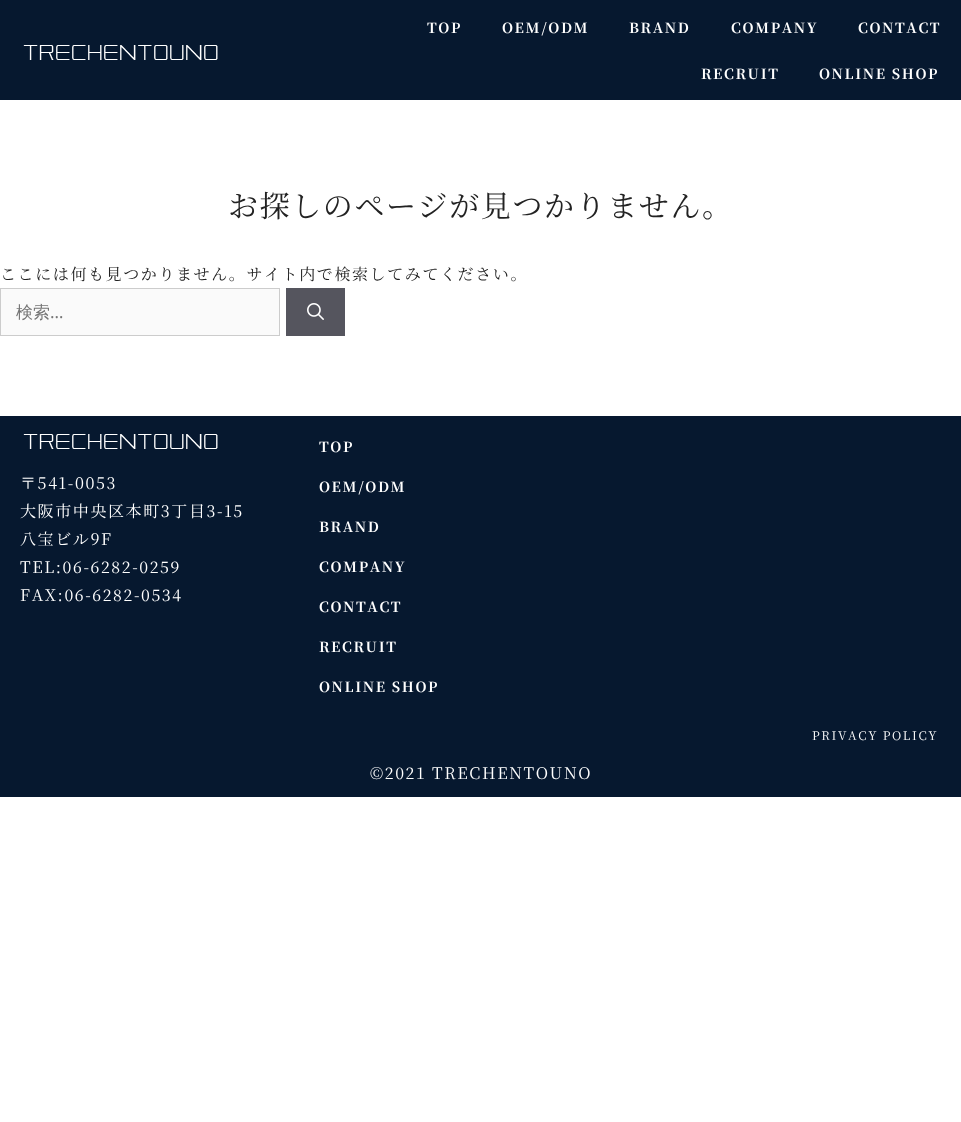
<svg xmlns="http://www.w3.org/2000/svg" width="961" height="1122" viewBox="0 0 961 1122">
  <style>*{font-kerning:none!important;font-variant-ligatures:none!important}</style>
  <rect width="100%" height="100%" fill="rgb(255,255,255)"/>
  <rect x="0" y="0" width="961" height="100" fill="rgb(6,24,47)"/>
  <image x="23" y="45" width="195" height="15" href="pic1.png"/>
  <g font-family="Noto Serif JP" font-size="14" font-weight="bold" letter-spacing="1.6" fill="rgb(255,255,255)">
    <text x="427" y="33">TOP</text>
    <text x="502" y="33">OEM/ODM</text>
    <text x="629" y="33">BRAND</text>
    <text x="731" y="33">COMPANY</text>
    <text x="858" y="33">CONTACT</text>
    <text x="701" y="79">RECRUIT</text>
    <text x="819" y="79">ONLINE SHOP</text>
  </g>
  <text x="228" y="217" font-family="Noto Serif JP" font-size="30" letter-spacing="1.6" fill="rgb(34,34,34)">お探しのページが見つかりません。</text>
  <text x="0" y="280" font-family="Noto Serif JP" font-size="16" letter-spacing="1.6" fill="rgb(34,34,34)">ここには何も見つかりません。サイト内で検索してみてください。</text>
  <rect x="0.5" y="288.5" width="279" height="47" fill="rgb(250,250,250)" stroke="rgb(204,204,204)"/>
  <text x="16" y="318" font-family="WenQuanYi Zen Hei" font-size="17" font-weight="500" fill="rgb(117,117,117)">検索</text>
  <text x="50" y="318" font-family="Noto Sans" font-size="17" fill="rgb(117,117,117)">…</text>
  <rect x="286" y="288" width="59" height="48" fill="rgb(85,85,94)"/>
  <image x="307" y="303" width="17" height="17" href="pic2.png"/>
  <rect x="0" y="416" width="961" height="381" fill="rgb(6,24,47)"/>
  <image x="23" y="434" width="195" height="15" href="pic1.png"/>
  <g font-family="Noto Serif JP" font-size="16" letter-spacing="1.6" fill="rgb(255,255,255)">
    <text>
      <tspan x="20" y="489">〒541-0053</tspan>
      <tspan x="20" y="517">大阪市中央区本町3丁目3-15</tspan>
      <tspan x="20" y="545">八宝ビル9F</tspan>
      <tspan x="20" y="573">TEL:06-6282-0259</tspan>
      <tspan x="20" y="601">FAX:06-6282-0534</tspan>
    </text>
  </g>
  <g font-family="Noto Serif JP" font-size="14" font-weight="bold" letter-spacing="1.6" fill="rgb(255,255,255)">
    <text x="319" y="452">TOP</text>
    <text x="319" y="492">OEM/ODM</text>
    <text x="319" y="532">BRAND</text>
    <text x="319" y="572">COMPANY</text>
    <text x="319" y="612">CONTACT</text>
    <text x="319" y="652">RECRUIT</text>
    <text x="319" y="692">ONLINE SHOP</text>
  </g>
  <text x="812" y="740" font-family="Noto Serif JP" font-size="12" letter-spacing="1.6" fill="rgb(255,255,255)">PRIVACY POLICY</text>
  <text x="370" y="779" font-family="Noto Serif JP" font-size="16" letter-spacing="1.6" fill="rgb(255,255,255)">©2021 TRECHENTOUNO</text>
</svg>
